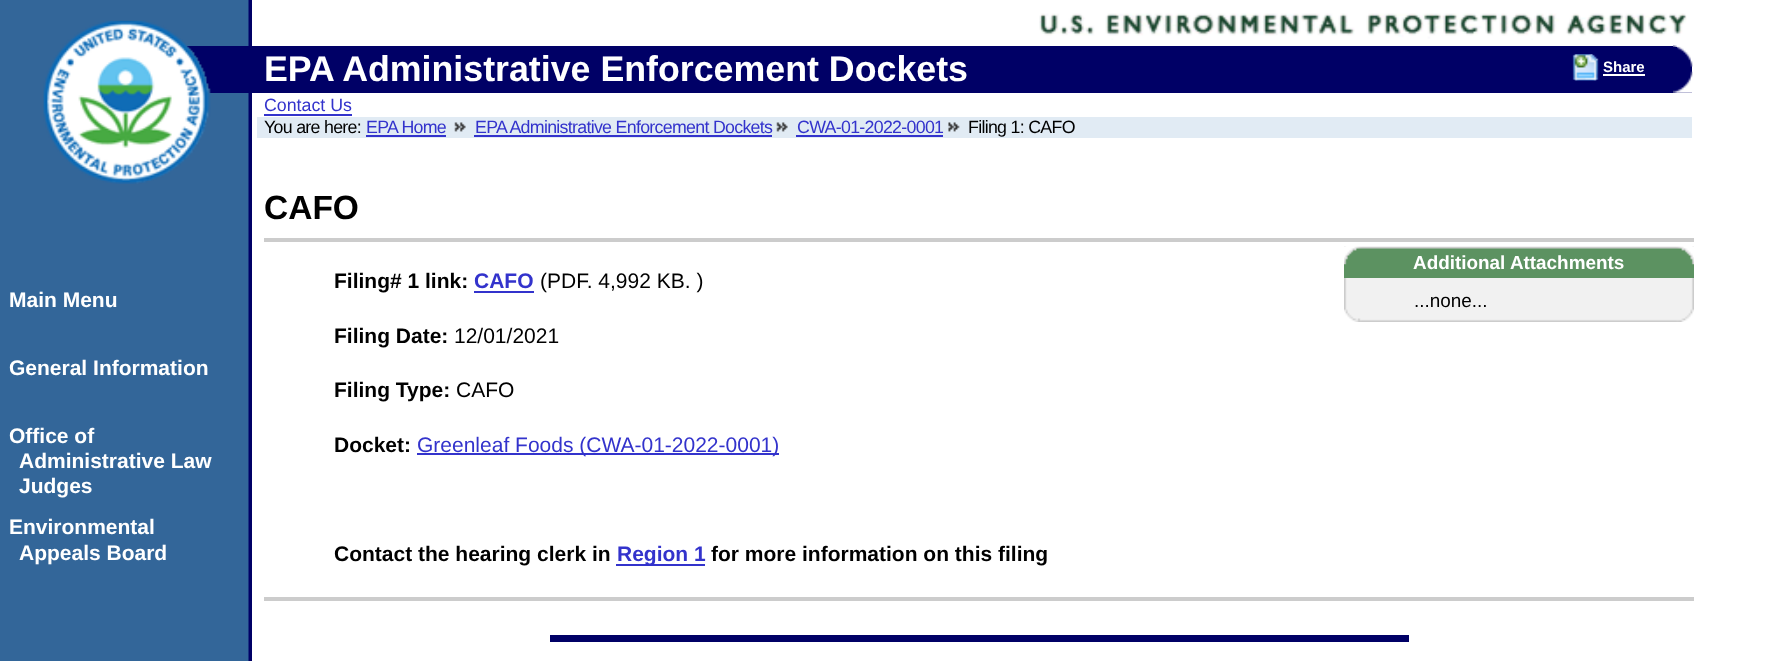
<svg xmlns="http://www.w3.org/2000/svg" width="1783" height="661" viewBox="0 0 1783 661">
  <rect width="100%" height="100%" fill="rgb(255,255,255)"/>
  <image x="0" y="0" width="252" height="661" href="pic1.png"/>
  <image x="1039" y="13" width="648" height="27" href="pic2.png"/>
  <rect x="186" y="46" width="1506" height="47" fill="rgb(0,0,102)"/>
  <image x="43" y="20" width="168" height="164" href="pic3.png"/>
  <image x="1673" y="45" width="20" height="22" href="pic4.png"/>
  <image x="1673" y="71" width="20" height="22" href="pic5.png"/>
  <text x="264" y="81" font-family="Liberation Sans" font-size="35.75" font-weight="bold" fill="rgb(255,255,255)">EPA Administrative Enforcement Dockets</text>
  <text x="264" y="111" font-family="Liberation Sans" font-size="17.8" fill="rgb(51,51,204)">Contact Us</text>
  <rect x="264" y="114" width="88" height="2" fill="rgb(51,51,204)"/>
  <rect x="257" y="117" width="1435" height="21" fill="rgb(225,235,244)"/>
  <text x="264" y="133" font-family="Liberation Sans" font-size="17.8" letter-spacing="-0.7" fill="rgb(0,0,0)">You are here:</text>
  <text x="366" y="133" font-family="Liberation Sans" font-size="17.8" letter-spacing="-0.7" fill="rgb(51,51,204)">EPA Home</text>
  <rect x="366" y="135" width="80" height="2" fill="rgb(51,51,204)"/>
  <image x="454" y="122" width="12" height="10" href="pic6.png"/>
  <text x="475" y="133" font-family="Liberation Sans" font-size="17.8" letter-spacing="-0.7" fill="rgb(51,51,204)">EPA Administrative Enforcement Dockets</text>
  <rect x="474" y="135" width="298" height="2" fill="rgb(51,51,204)"/>
  <image x="776" y="122" width="12" height="10" href="pic6.png"/>
  <text x="797" y="133" font-family="Liberation Sans" font-size="17.8" letter-spacing="-0.7" fill="rgb(51,51,204)">CWA-01-2022-0001</text>
  <rect x="796" y="135" width="147" height="2" fill="rgb(51,51,204)"/>
  <image x="948" y="122" width="12" height="10" href="pic7.png"/>
  <text x="968" y="133" font-family="Liberation Sans" font-size="17.8" letter-spacing="-0.7" fill="rgb(0,0,0)">Filing 1: CAFO</text>
  <rect x="1673" y="47" width="4" height="2" fill="rgb(0,0,102)"/>
  <image x="1572" y="54" width="27" height="27" href="pic8.png"/>
  <text x="1603" y="72" font-family="Liberation Sans" font-size="15" font-weight="bold" fill="rgb(255,255,255)">Share</text>
  <rect x="1603" y="74" width="42" height="2" fill="rgb(255,255,255)"/>
  <rect x="550" y="635" width="859" height="7" fill="rgb(0,0,102)"/>
  <g font-family="Liberation Sans" font-size="21" font-weight="bold" fill="rgb(255,255,255)">
    <text x="9" y="307">Main Menu</text>
    <text x="9" y="375">General Information</text>
    <text x="9" y="443">Office of</text>
    <text>
      <tspan x="19" y="468">Administrative Law</tspan>
      <tspan x="19" y="493">Judges</tspan>
    </text>
    <text x="9" y="534">Environmental</text>
    <text x="19" y="560">Appeals Board</text>
  </g>
  <text x="264" y="219" font-family="Liberation Sans" font-size="33.5" font-weight="bold" fill="rgb(0,0,0)">CAFO</text>
  <rect x="264" y="238" width="1430" height="4" fill="rgb(204,204,204)"/>
  <text x="334" y="288" font-family="Liberation Sans" font-size="21" font-weight="bold" fill="rgb(0,0,0)">Filing# 1 link:</text>
  <text x="474" y="288" font-family="Liberation Sans" font-size="21" font-weight="bold" fill="rgb(51,51,204)">CAFO</text>
  <rect x="474" y="291" width="60" height="2" fill="rgb(51,51,204)"/>
  <text x="540" y="288" font-family="Liberation Sans" font-size="21" fill="rgb(0,0,0)">(PDF. 4,992 KB. )</text>
  <text x="334" y="343" font-family="Liberation Sans" font-size="21" font-weight="bold" fill="rgb(0,0,0)">Filing Date:</text>
  <text x="454" y="343" font-family="Liberation Sans" font-size="21" fill="rgb(0,0,0)">12/01/2021</text>
  <text x="334" y="397" font-family="Liberation Sans" font-size="21" font-weight="bold" fill="rgb(0,0,0)">Filing Type:</text>
  <text x="456" y="397" font-family="Liberation Sans" font-size="21" fill="rgb(0,0,0)">CAFO</text>
  <text x="334" y="452" font-family="Liberation Sans" font-size="21" font-weight="bold" fill="rgb(0,0,0)">Docket:</text>
  <rect x="417" y="453" width="362" height="2" fill="rgb(51,51,204)"/>
  <text x="417" y="452" font-family="Liberation Sans" font-size="21" fill="rgb(51,51,204)">Greenleaf Foods (CWA-01-2022-0001)</text>
  <text x="334" y="561" font-family="Liberation Sans" font-size="21" font-weight="bold" fill="rgb(0,0,0)">Contact the hearing clerk in</text>
  <rect x="616" y="564" width="89" height="2" fill="rgb(51,51,204)"/>
  <text x="617" y="561" font-family="Liberation Sans" font-size="21" font-weight="bold" fill="rgb(51,51,204)">Region 1</text>
  <text x="711" y="561" font-family="Liberation Sans" font-size="21" font-weight="bold" fill="rgb(0,0,0)">for more information on this filing</text>
  <rect x="1345" y="278" width="348" height="43" fill="rgb(241,241,241)"/>
  <image x="1344" y="246" width="350" height="76" href="pic9.png"/>
  <rect x="1344" y="248" width="350" height="30" fill="rgb(92,146,97)"/>
  <image x="1344" y="246" width="350" height="19" href="pic10.png"/>
  <text x="1413" y="269" font-family="Liberation Sans" font-size="18.9" font-weight="bold" fill="rgb(255,255,255)">Additional Attachments</text>
  <text x="1414" y="307" font-family="Liberation Sans" font-size="18.9" fill="rgb(0,0,0)">...none...</text>
  <rect x="264" y="597" width="1430" height="4" fill="rgb(204,204,204)"/>
</svg>
